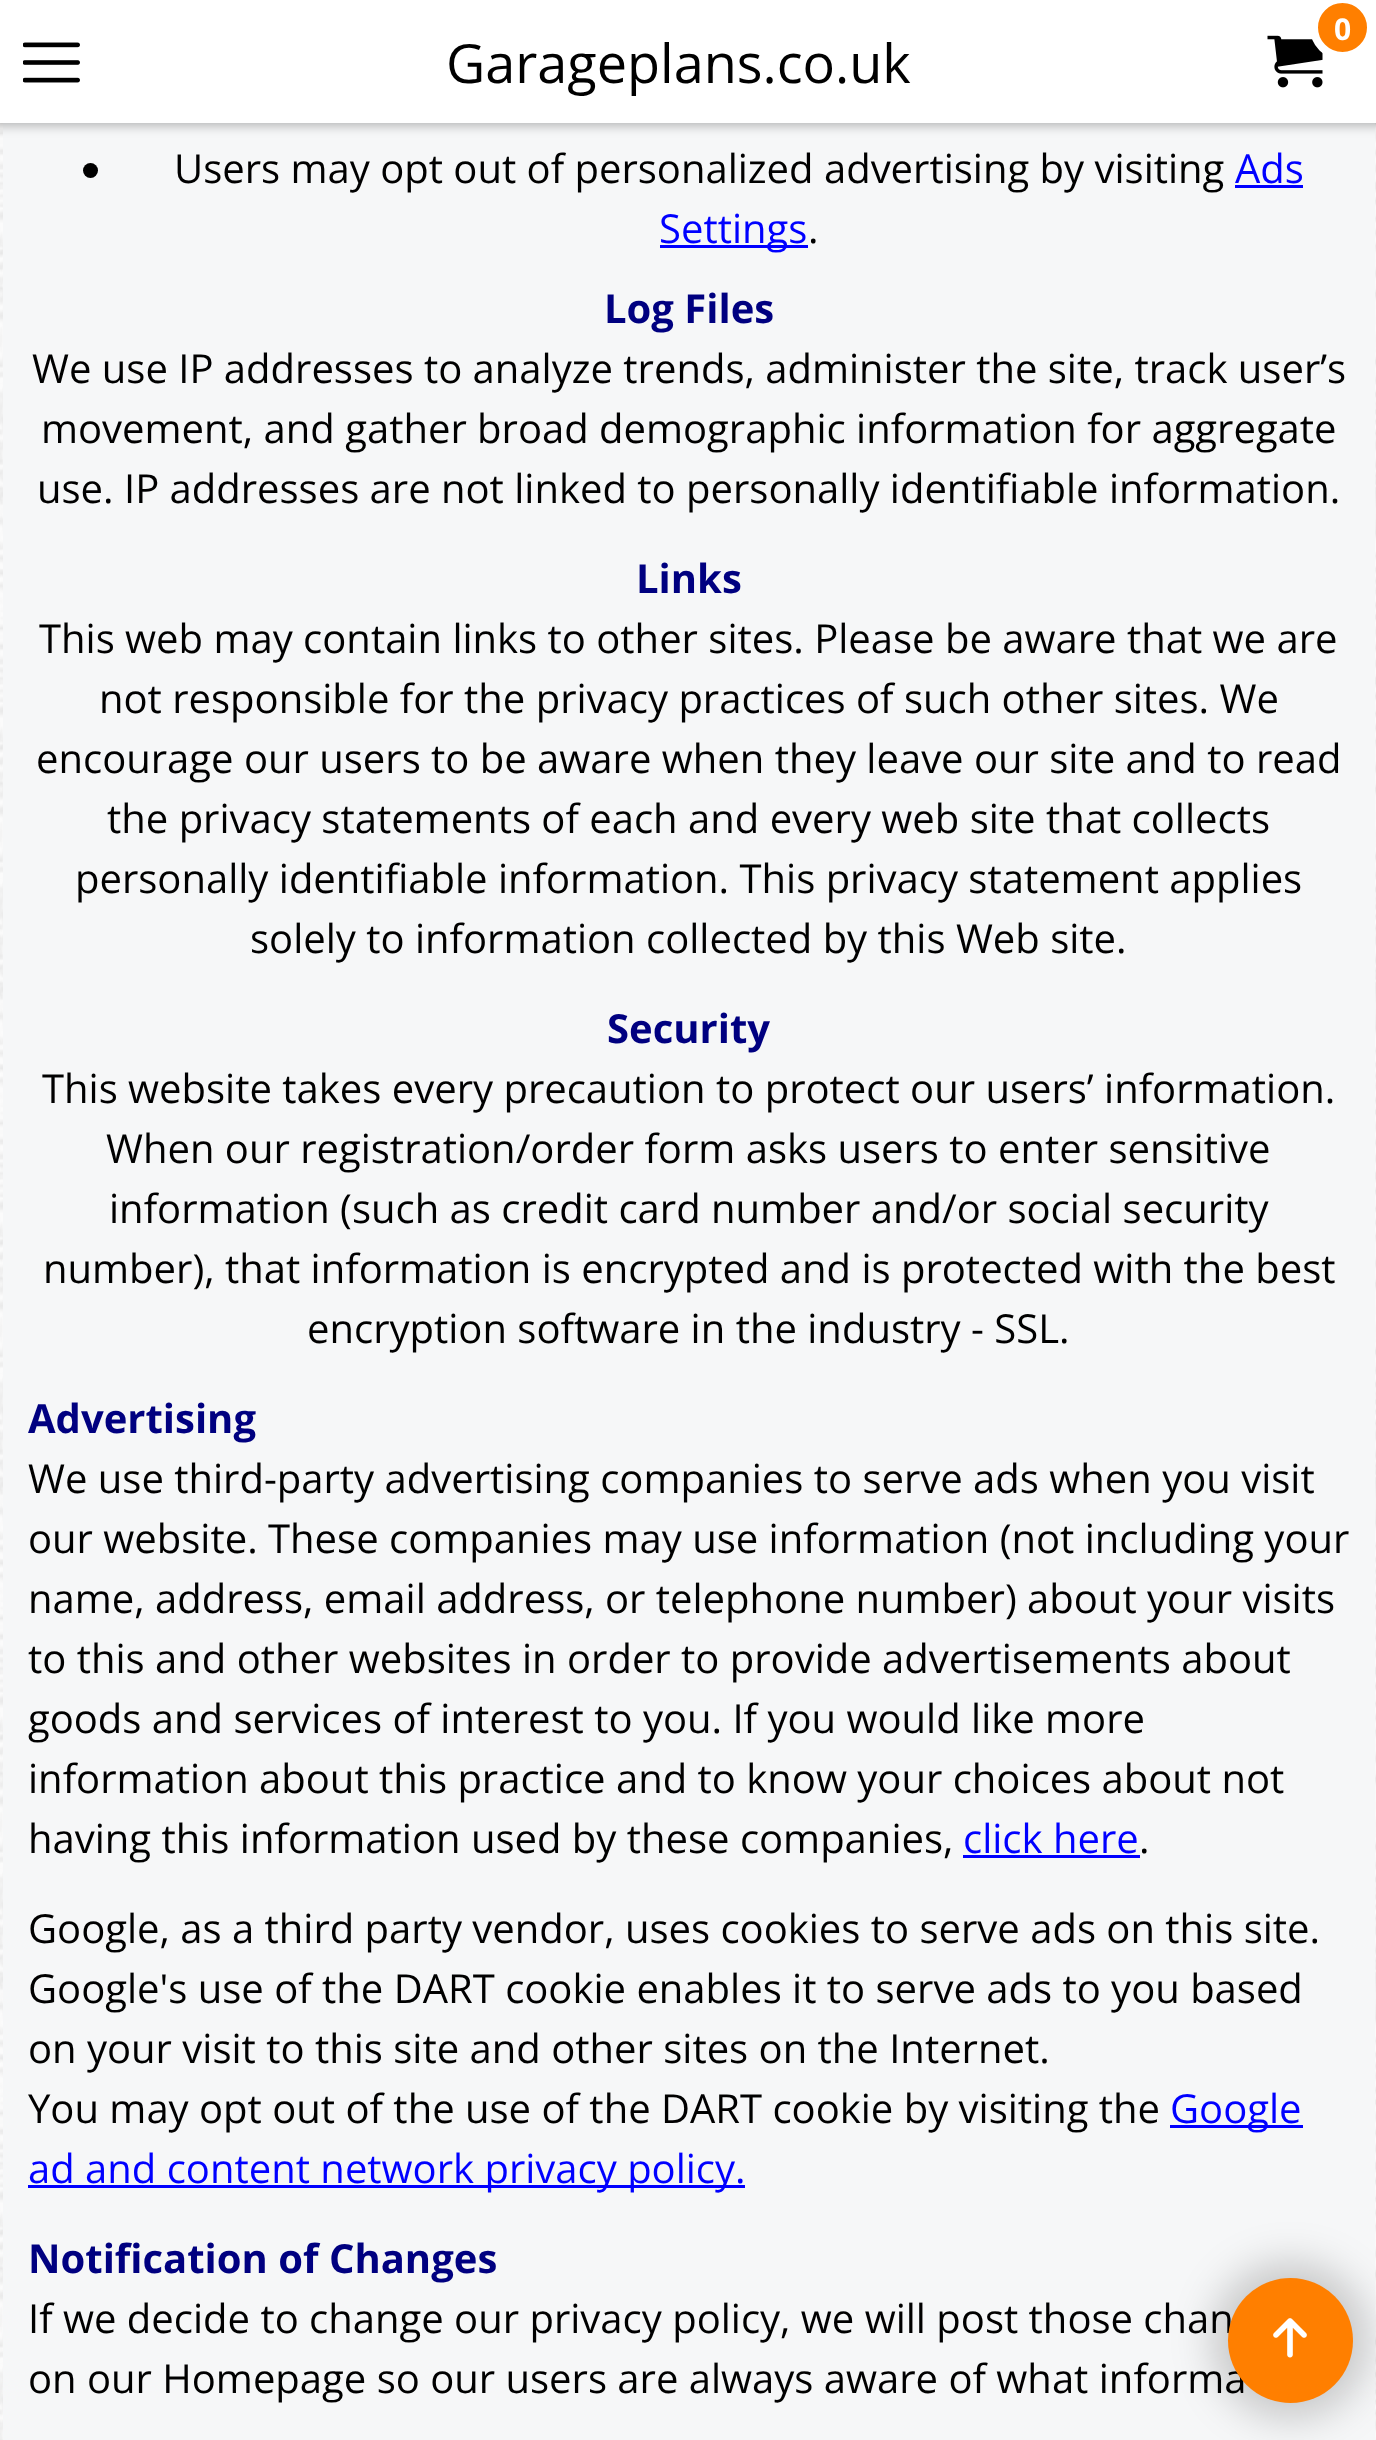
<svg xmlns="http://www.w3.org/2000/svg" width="1376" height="2440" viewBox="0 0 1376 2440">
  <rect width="100%" height="100%" fill="rgb(255,255,255)"/>
  <image x="0" y="123" width="1376" height="2317" href="pic1.png"/>
  <rect x="3" y="123" width="1372" height="2317" fill="rgb(246,247,248)"/>
  <rect x="-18" y="-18" width="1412" height="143" fill="rgba(0,0,0,0.3)" filter="blur(6px)"/>
  <rect x="0" y="0" width="1376" height="123" fill="rgb(255,255,255)"/>
  <image x="1267" y="35" width="56" height="53" href="pic2.png"/>
  <circle cx="1342.5" cy="27.5" r="28.5" fill="rgb(255,127,0)" stroke="rgb(255,255,255)" stroke-width="8"/>
  <text x="1334" y="40" font-family="Open Sans" font-size="30" font-weight="bold" fill="rgb(255,255,255)">0</text>
  <image x="23" y="42" width="57" height="41" href="pic3.png"/>
  <text x="446" y="83" font-family="Open Sans" font-size="54" fill="rgb(0,0,0)">Garageplans.co.uk</text>
  <circle cx="90.5" cy="170.5" r="7.5" fill="rgb(0,0,0)"/>
  <text x="174" y="183" font-family="Open Sans" font-size="40" fill="rgb(0,0,0)">Users may opt out of personalized advertising by visiting</text>
  <text x="1235" y="183" font-family="Open Sans" font-size="40" fill="rgb(0,0,255)">Ads</text>
  <rect x="1235" y="185" width="68" height="3" fill="rgb(0,0,255)"/>
  <rect x="660" y="245" width="148" height="3" fill="rgb(0,0,255)"/>
  <text x="659" y="243" font-family="Open Sans" font-size="40" fill="rgb(0,0,255)">Settings</text>
  <text x="808" y="243" font-family="Open Sans" font-size="40" fill="rgb(0,0,0)">.</text>
  <text x="604" y="323" font-family="Open Sans" font-size="40" font-weight="bold" fill="rgb(0,0,128)">Log Files</text>
  <g font-family="Open Sans" font-size="40" fill="rgb(0,0,0)">
    <text x="32" y="383">We use IP addresses to analyze trends, administer the site, track user’s</text>
    <text x="41" y="443">movement, and gather broad demographic information for aggregate</text>
    <text x="37" y="503">use. IP addresses are not linked to personally identifiable information.</text>
  </g>
  <text x="636" y="593" font-family="Open Sans" font-size="40" font-weight="bold" fill="rgb(0,0,128)">Links</text>
  <g font-family="Open Sans" font-size="40" fill="rgb(0,0,0)">
    <text x="39" y="653">This web may contain links to other sites. Please be aware that we are</text>
    <text x="99" y="713">not responsible for the privacy practices of such other sites. We</text>
    <text x="36" y="773">encourage our users to be aware when they leave our site and to read</text>
    <text x="107" y="833">the privacy statements of each and every web site that collects</text>
    <text x="75" y="893">personally identifiable information. This privacy statement applies</text>
    <text x="250" y="953">solely to information collected by this Web site.</text>
  </g>
  <text x="607" y="1043" font-family="Open Sans" font-size="40" font-weight="bold" fill="rgb(0,0,128)">Security</text>
  <g font-family="Open Sans" font-size="40" fill="rgb(0,0,0)">
    <text x="42" y="1103">This website takes every precaution to protect our users’ information.</text>
    <text x="106" y="1163">When our registration/order form asks users to enter sensitive</text>
    <text x="109" y="1223">information (such as credit card number and/or social security</text>
    <text x="43" y="1283">number), that information is encrypted and is protected with the best</text>
    <text x="307" y="1343">encryption software in the industry - SSL.</text>
  </g>
  <text x="28" y="1433" font-family="Open Sans" font-size="40" font-weight="bold" fill="rgb(0,0,128)">Advertising</text>
  <g font-family="Open Sans" font-size="40" fill="rgb(0,0,0)">
    <text>
      <tspan x="28" y="1493">We use third-party advertising companies to serve ads when you visit</tspan>
      <tspan x="28" y="1553">our website. These companies may use information (not including your</tspan>
      <tspan x="28" y="1613">name, address, email address, or telephone number) about your visits</tspan>
      <tspan x="28" y="1673">to this and other websites in order to provide advertisements about</tspan>
      <tspan x="28" y="1733">goods and services of interest to you. If you would like more</tspan>
      <tspan x="28" y="1793">information about this practice and to know your choices about not</tspan>
      <tspan x="28" y="1853">having this information used by these companies,</tspan>
    </text>
  </g>
  <text x="963" y="1853" font-family="Open Sans" font-size="40" fill="rgb(0,0,255)">click here</text>
  <rect x="963" y="1855" width="177" height="3" fill="rgb(0,0,255)"/>
  <g font-family="Open Sans" font-size="40" fill="rgb(0,0,0)">
    <text x="1139" y="1853">.</text>
    <text>
      <tspan x="28" y="1943">Google, as a third party vendor, uses cookies to serve ads on this site.</tspan>
      <tspan x="28" y="2003">Google's use of the DART cookie enables it to serve ads to you based</tspan>
      <tspan x="28" y="2063">on your visit to this site and other sites on the Internet.</tspan>
      <tspan x="28" y="2123">You may opt out of the use of the DART cookie by visiting the</tspan>
    </text>
  </g>
  <rect x="1170" y="2125" width="133" height="3" fill="rgb(0,0,255)"/>
  <text x="1170" y="2123" font-family="Open Sans" font-size="40" fill="rgb(0,0,255)">Google</text>
  <rect x="28" y="2185" width="717" height="3" fill="rgb(0,0,255)"/>
  <text x="28" y="2183" font-family="Open Sans" font-size="40" fill="rgb(0,0,255)">ad and content network privacy policy.</text>
  <text x="28" y="2273" font-family="Open Sans" font-size="40" font-weight="bold" fill="rgb(0,0,128)">Notification of Changes</text>
  <g font-family="Open Sans" font-size="40" fill="rgb(0,0,0)">
    <text>
      <tspan x="28" y="2333">If we decide to change our privacy policy, we will post those chan</tspan>
      <tspan x="28" y="2393">on our Homepage so our users are always aware of what informa</tspan>
    </text>
  </g>
  <rect x="1213" y="2263" width="155" height="155" rx="77.5" fill="rgba(0,0,0,0.2)" filter="blur(21px)"/>
  <circle cx="1290.5" cy="2340.5" r="62.5" fill="rgb(255,127,0)"/>
  <image x="1273" y="2318" width="34" height="40" href="pic4.png"/>
</svg>
